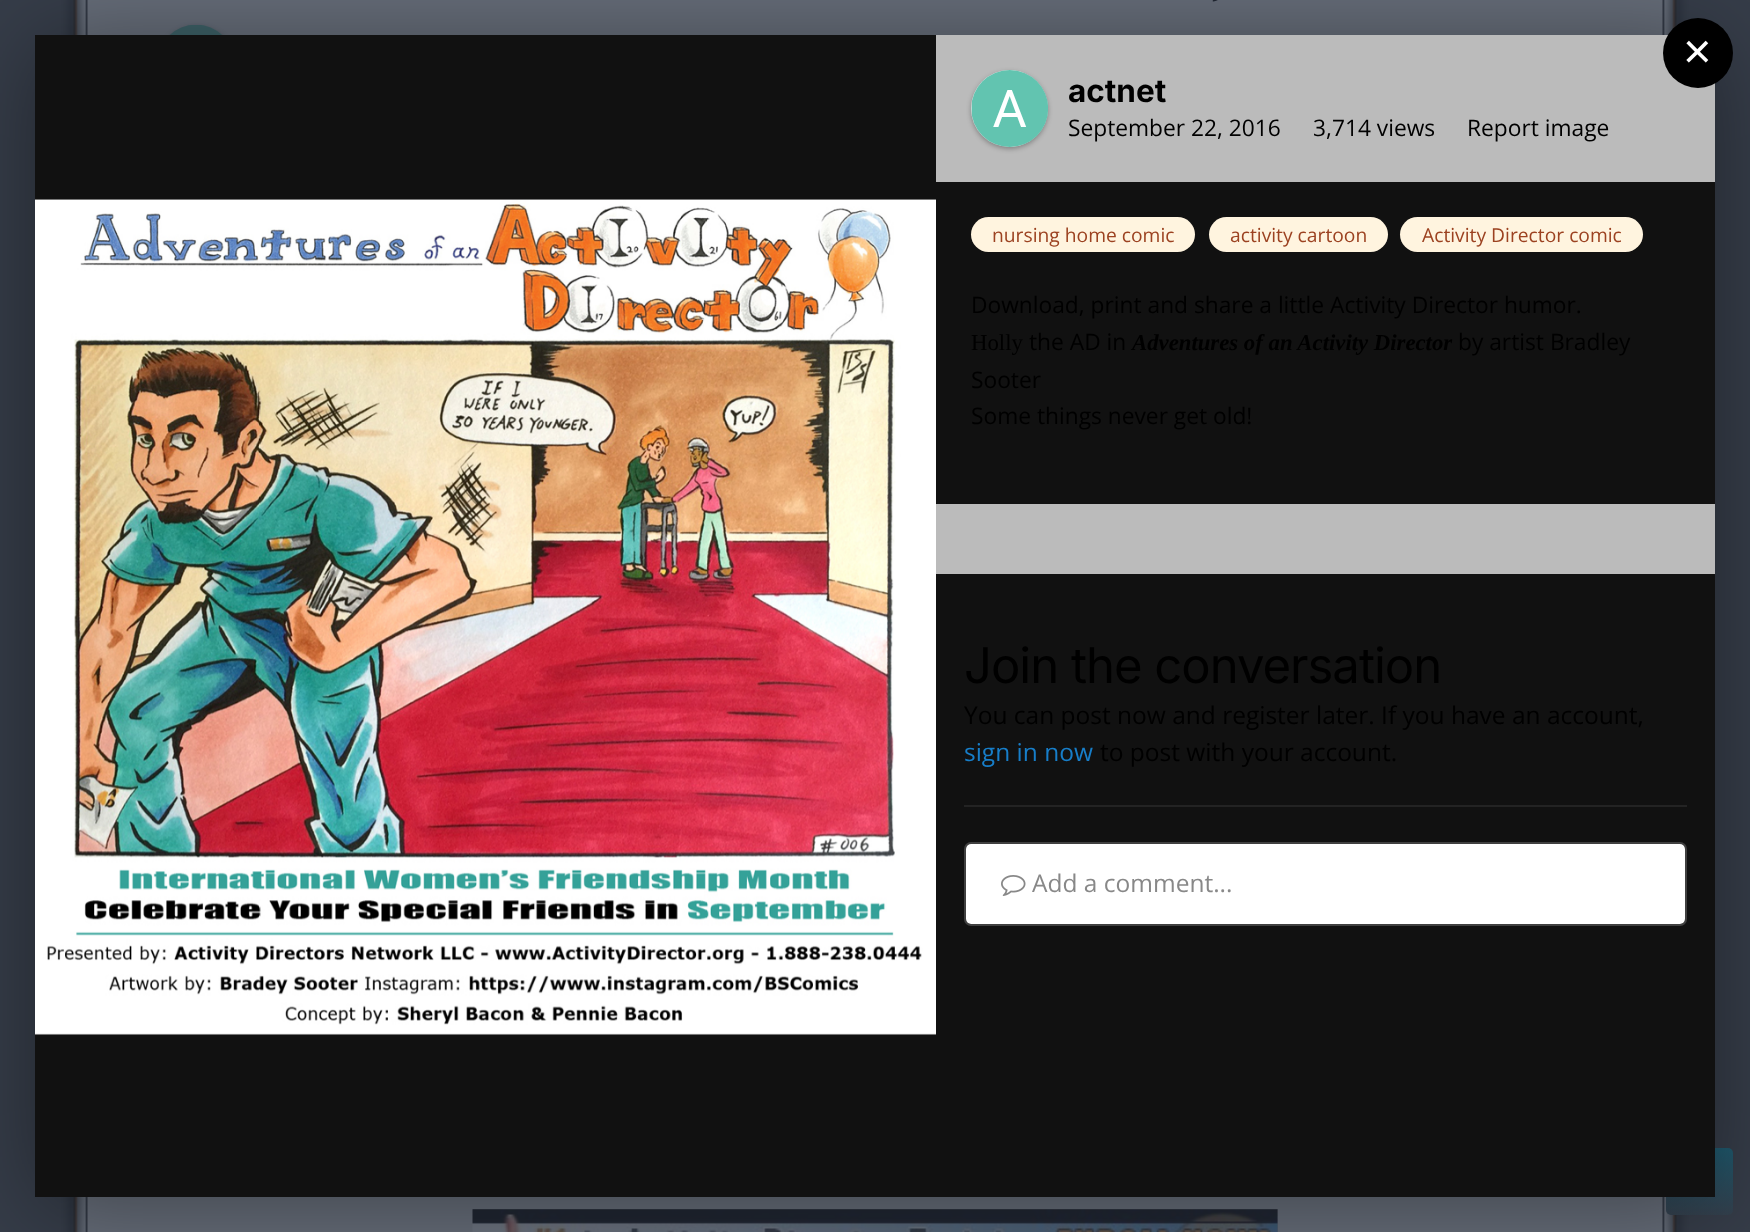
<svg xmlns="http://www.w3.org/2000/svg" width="1750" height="1232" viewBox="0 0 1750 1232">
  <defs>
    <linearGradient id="g1" gradientUnits="userSpaceOnUse" x1="158" y1="25" x2="158" y2="102"><stop offset="0" stop-color="rgb(104,111,123)"/><stop offset="1" stop-color="rgb(98,105,117)"/></linearGradient>
    <linearGradient id="g2" gradientUnits="userSpaceOnUse" x1="1699" y1="1148" x2="1699" y2="1215"><stop offset="0" stop-color="rgb(32,90,111)"/><stop offset="1" stop-color="rgb(52,65,78)"/></linearGradient>
    <linearGradient id="g3" gradientUnits="userSpaceOnUse" x1="971" y1="70" x2="971" y2="147"><stop offset="0" stop-color="rgb(242,242,242)"/><stop offset="1" stop-color="rgb(221,221,221)"/></linearGradient>
  </defs>
  <rect width="100%" height="100%" fill="rgb(102,109,121)"/>
  <image x="0" y="0" width="88" height="1232" href="pic1.png"/>
  <image x="1662" y="0" width="88" height="1232" href="pic2.png"/>
  <image x="1212" y="0" width="6" height="2" href="pic3.png"/>
  <rect x="158" y="26" width="77" height="77" rx="38.5" fill="rgba(31,39,50,0.3)" filter="blur(2.5px)"/>
  <circle cx="196.5" cy="63.5" r="38.5" fill="url(#g1)"/>
  <image x="169" y="25" width="54" height="10" href="pic4.png"/>
  <rect x="1666" y="1148" width="67" height="67" rx="5" fill="url(#g2)"/>
  <rect x="473" y="1209" width="805" height="23" fill="rgb(88,95,107)"/>
  <image x="472" y="1209" width="806" height="23" href="pic5.png"/>
  <rect x="35" y="44" width="1680" height="1162" fill="rgba(0,0,0,0.4)" filter="blur(48px)"/>
  <rect x="35" y="35" width="1680" height="1162" fill="rgb(17,17,17)"/>
  <rect x="936" y="35" width="779" height="147" fill="rgb(187,187,187)"/>
  <circle cx="1698" cy="53" r="35" fill="rgb(0,0,0)"/>
  <text x="1683" y="68" font-family="Liberation Sans" font-size="49" fill="rgb(255,255,255)">×</text>
  <image x="35" y="199" width="901" height="836" href="pic6.png"/>
  <rect x="971" y="72" width="77" height="77" rx="38.5" fill="rgba(0,0,0,0.3)" filter="blur(2.5px)"/>
  <circle cx="1009.5" cy="108.5" r="38.5" fill="url(#g3)"/>
  <image x="971" y="70" width="77" height="77" href="pic7.png"/>
  <text x="1068" y="102" font-family="Inter" font-size="31.5" font-weight="bold" fill="rgb(0,0,0)">actnet</text>
  <g font-family="Open Sans" font-size="22.75" fill="rgb(0,0,0)">
    <text x="1068" y="136">September 22, 2016</text>
    <text x="1313" y="136">3,714 views</text>
    <text x="1467" y="136">Report image</text>
  </g>
  <rect x="971" y="217" width="224" height="35" rx="17.5" fill="rgb(255,244,223)"/>
  <text x="992" y="242" font-family="Open Sans" font-size="19.25" fill="rgb(156,66,33)">nursing home comic</text>
  <rect x="1209" y="217" width="179" height="35" rx="17.5" fill="rgb(255,244,223)"/>
  <text x="1230" y="242" font-family="Open Sans" font-size="19.25" fill="rgb(156,66,33)">activity cartoon</text>
  <rect x="1400" y="217" width="243" height="35" rx="17.5" fill="rgb(255,244,223)"/>
  <text x="1422" y="242" font-family="Open Sans" font-size="19.25" fill="rgb(156,66,33)">Activity Director comic</text>
  <text x="971" y="313" font-family="Open Sans" font-size="22.75" fill="rgb(0,0,0)">Download, print and share a little Activity Director humor.</text>
  <text x="971" y="350" font-family="Liberation Serif" font-size="22.75" fill="rgb(0,0,0)">Holly</text>
  <text x="1029" y="350" font-family="Open Sans" font-size="22.75" fill="rgb(0,0,0)">the AD in</text>
  <text x="1132" y="350" font-family="Liberation Serif" font-size="22.75" font-weight="bold" font-style="italic" fill="rgb(0,0,0)">Adventures of an Activity Director</text>
  <g font-family="Open Sans" font-size="22.75" fill="rgb(0,0,0)">
    <text x="1458" y="350">by artist Bradley</text>
    <text>
      <tspan x="971" y="388">Sooter</tspan>
      <tspan x="971" y="424">Some things never get old!</tspan>
    </text>
  </g>
  <rect x="936" y="504" width="779" height="70" fill="rgb(187,187,187)"/>
  <rect x="964" y="805" width="723" height="2" fill="rgb(35,35,35)"/>
  <text x="964" y="683" font-family="Inter" font-size="49" letter-spacing="-1" fill="rgb(0,0,0)">Join the conversation</text>
  <text x="964" y="724" font-family="Open Sans" font-size="24.5" fill="rgb(0,0,0)">You can post now and register later. If you have an account,</text>
  <text x="964" y="761" font-family="Open Sans" font-size="24.5" fill="rgb(23,126,201)">sign in now</text>
  <text x="1100" y="761" font-family="Open Sans" font-size="24.5" fill="rgb(0,0,0)">to post with your account.</text>
  <rect x="966" y="844" width="719" height="80" rx="5" fill="rgb(255,255,255)"/>
  <rect x="965" y="843" width="721" height="82" rx="6" fill="none" stroke="rgba(136,136,136,0.4)" stroke-width="2"/>
  <image x="1001" y="875" width="25" height="21" href="pic8.png"/>
  <text x="1032" y="892" font-family="Open Sans" font-size="24.5" fill="rgb(136,136,136)">Add a comment...</text>
</svg>
